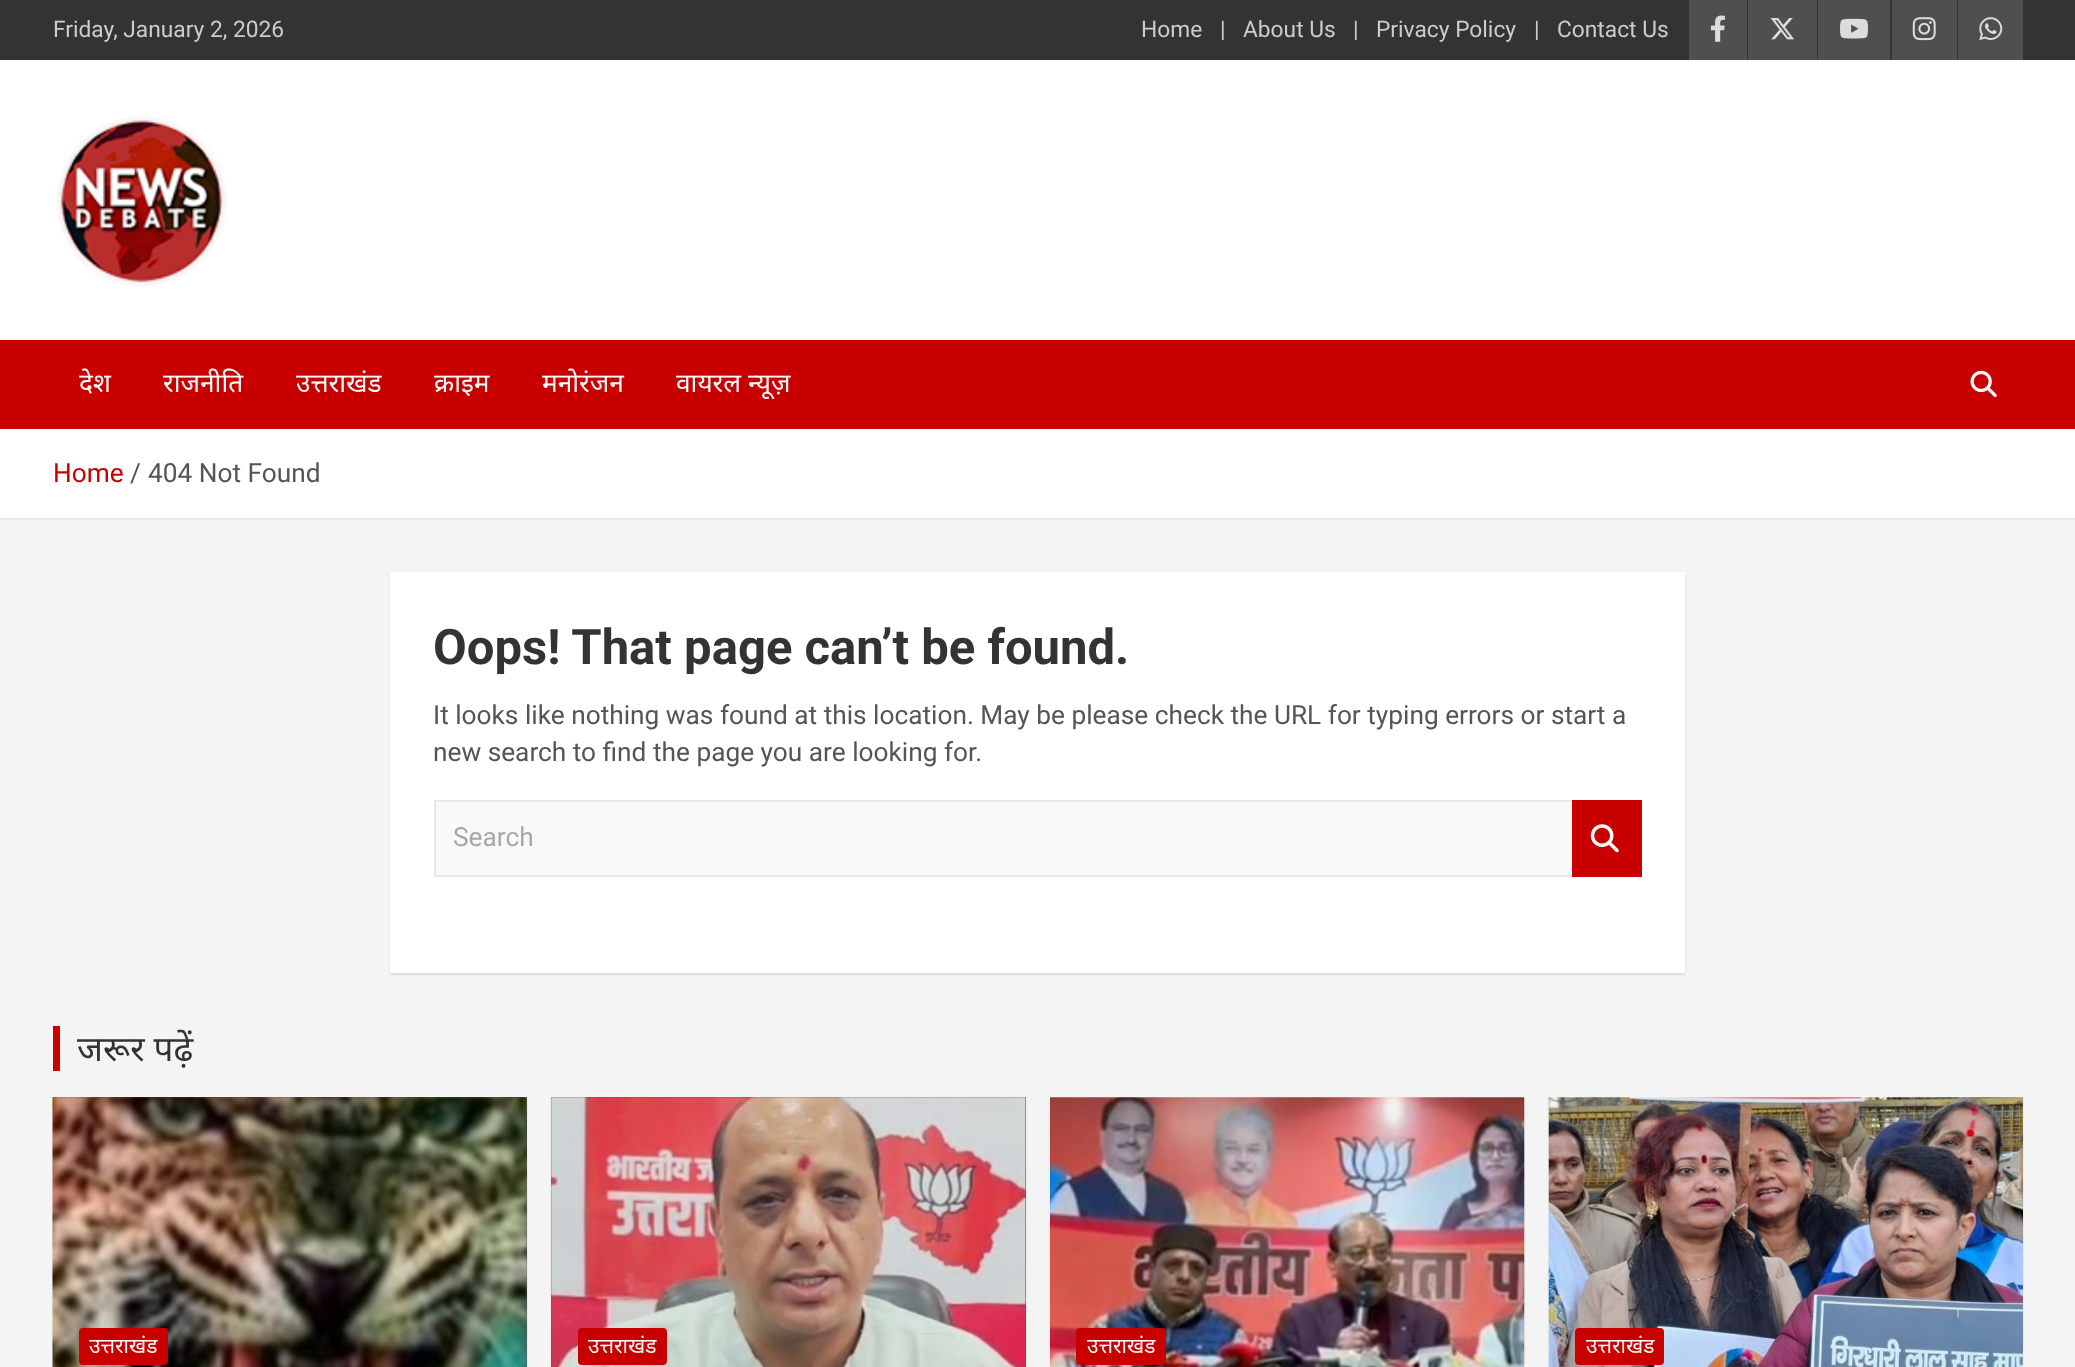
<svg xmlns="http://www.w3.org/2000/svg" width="2075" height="1367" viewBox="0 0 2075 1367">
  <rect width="100%" height="100%" fill="rgb(244,244,244)"/>
  <rect x="0" y="0" width="2075" height="60" fill="rgb(51,51,51)"/>
  <g font-family="Roboto" font-size="22.75" fill="rgb(204,204,204)">
    <text x="53" y="37">Friday, January 2, 2026</text>
    <text x="1141" y="37">Home</text>
    <text x="1220" y="37">|</text>
    <text x="1243" y="37">About Us</text>
    <text x="1353" y="37">|</text>
    <text x="1376" y="37">Privacy Policy</text>
    <text x="1534" y="37">|</text>
    <text x="1557" y="37">Contact Us</text>
  </g>
  <rect x="1689" y="0" width="58" height="60" fill="rgb(79,79,79)"/>
  <image x="1710" y="15" width="15" height="27" href="pic1.png"/>
  <rect x="1748" y="0" width="69" height="60" fill="rgb(79,79,79)"/>
  <image x="1770" y="18" width="25" height="22" href="pic2.png"/>
  <rect x="1818" y="0" width="72" height="60" fill="rgb(79,79,79)"/>
  <image x="1840" y="18" width="28" height="21" href="pic3.png"/>
  <rect x="1892" y="0" width="65" height="60" fill="rgb(79,79,79)"/>
  <image x="1912" y="17" width="24" height="24" href="pic4.png"/>
  <rect x="1958" y="0" width="65" height="60" fill="rgb(79,79,79)"/>
  <image x="1979" y="17" width="24" height="24" href="pic5.png"/>
  <rect x="0" y="60" width="2075" height="280" fill="rgb(255,255,255)"/>
  <image x="56" y="116" width="171" height="171" href="pic6.png"/>
  <rect x="0" y="340" width="2075" height="89" fill="rgb(200,0,0)"/>
  <g font-family="Noto Sans" font-size="26.25" fill="rgb(255,255,255)">
    <text x="79" y="392">देश</text>
    <text x="163" y="392">राजनीति</text>
    <text x="296" y="392">उत्तराखंड</text>
    <text x="434" y="392">क्राइम</text>
    <text x="542" y="392">मनोरंजन</text>
    <text x="676" y="392">वायरल न्यूज़</text>
  </g>
  <image x="1970" y="370" width="27" height="27" href="pic7.png"/>
  <rect x="0" y="429" width="2075" height="89" fill="rgb(255,255,255)"/>
  <rect x="0" y="518" width="2075" height="2" fill="rgb(230,230,230)"/>
  <text x="53" y="482" font-family="Roboto" font-size="26.25" fill="rgb(200,0,0)">Home</text>
  <g font-family="Roboto" font-size="26.25" fill="rgb(85,85,85)">
    <text x="130" y="482">/</text>
    <text x="148" y="482">404 Not Found</text>
  </g>
  <rect x="390" y="574" width="1295" height="401" fill="rgba(0,0,0,0.1)" filter="blur(1px)"/>
  <rect x="390" y="572" width="1295" height="401" fill="rgb(255,255,255)"/>
  <text x="433" y="664" font-family="Roboto" font-size="49" font-weight="bold" fill="rgb(51,51,51)">Oops! That page can’t be found.</text>
  <g font-family="Roboto" font-size="26.25" fill="rgb(85,85,85)">
    <text>
      <tspan x="433" y="724">It looks like nothing was found at this location. May be please check the URL for typing errors or start a</tspan>
      <tspan x="433" y="761">new search to find the page you are looking for.</tspan>
    </text>
  </g>
  <rect x="436" y="802" width="1136" height="73" fill="rgb(249,249,249)"/>
  <path d="M434 800H1572V802H436Z" fill="rgb(232,232,232)"/>
  <path d="M1572 877H434L436 875H1572Z" fill="rgb(232,232,232)"/>
  <path d="M434 877V800L436 802V875Z" fill="rgba(0,0,0,0.09)"/>
  <text x="453" y="846" font-family="Roboto" font-size="26.25" fill="rgb(167,167,167)">Search</text>
  <rect x="1572" y="800" width="70" height="77" fill="rgb(200,0,0)"/>
  <image x="1590" y="824" width="29" height="29" href="pic8.png"/>
  <rect x="53" y="1026" width="7" height="45" fill="rgb(200,0,0)"/>
  <text x="77" y="1061" font-family="Noto Sans" font-size="35" fill="rgb(51,51,51)">जरूर पढ़ें</text>
  <rect x="53" y="1099" width="474" height="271" fill="rgba(0,0,0,0.1)" filter="blur(1px)"/>
  <rect x="53" y="1097" width="474" height="270" fill="rgb(85,85,85)"/>
  <image x="52" y="1097" width="475" height="270" href="pic9.png"/>
  <rect x="79" y="1328" width="89" height="37" rx="4" fill="rgb(200,0,0)"/>
  <text x="89" y="1353" font-family="Noto Sans" font-size="21" fill="rgb(255,255,255)">उत्तराखंड</text>
  <rect x="551" y="1099" width="475" height="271" fill="rgba(0,0,0,0.1)" filter="blur(1px)"/>
  <rect x="551" y="1097" width="475" height="270" fill="rgb(85,85,85)"/>
  <image x="551" y="1097" width="475" height="270" href="pic10.png"/>
  <rect x="578" y="1328" width="89" height="37" rx="4" fill="rgb(200,0,0)"/>
  <text x="588" y="1353" font-family="Noto Sans" font-size="21" fill="rgb(255,255,255)">उत्तराखंड</text>
  <rect x="1050" y="1099" width="474" height="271" fill="rgba(0,0,0,0.1)" filter="blur(1px)"/>
  <image x="1050" y="1097" width="475" height="270" href="pic11.png"/>
  <rect x="1076" y="1328" width="90" height="37" rx="4" fill="rgb(200,0,0)"/>
  <text x="1087" y="1353" font-family="Noto Sans" font-size="21" fill="rgb(255,255,255)">उत्तराखंड</text>
  <rect x="1549" y="1099" width="474" height="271" fill="rgba(0,0,0,0.1)" filter="blur(1px)"/>
  <image x="1548" y="1097" width="475" height="270" href="pic12.png"/>
  <rect x="1575" y="1328" width="89" height="37" rx="4" fill="rgb(200,0,0)"/>
  <text x="1586" y="1353" font-family="Noto Sans" font-size="21" fill="rgb(255,255,255)">उत्तराखंड</text>
</svg>
